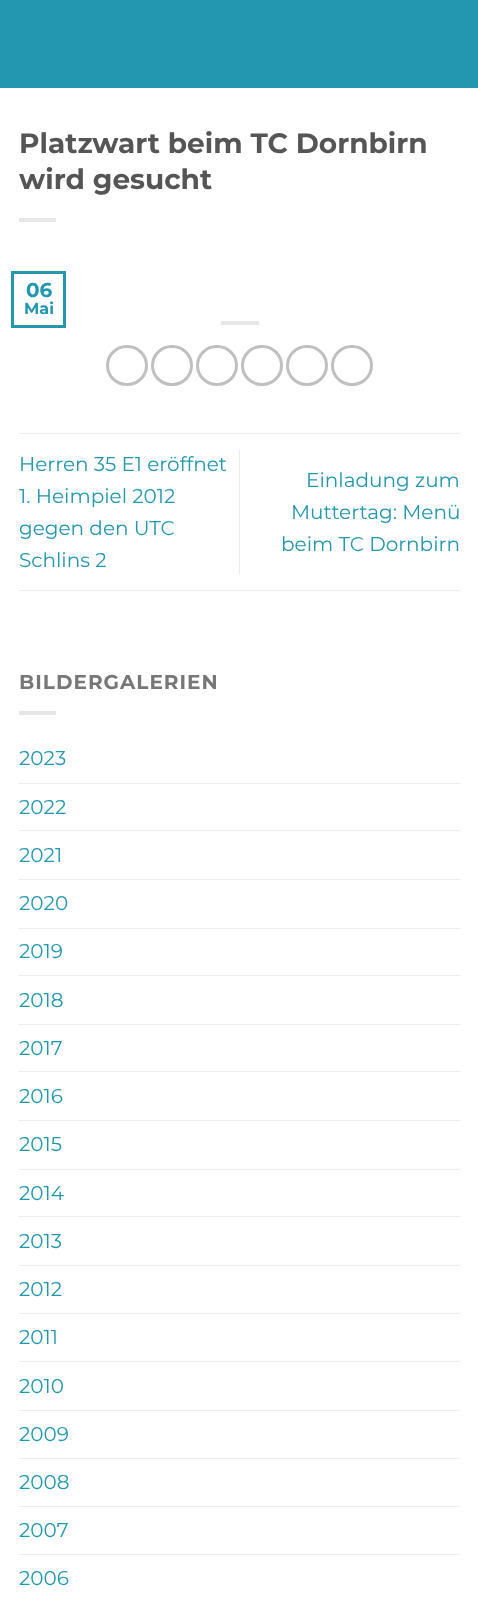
<svg xmlns="http://www.w3.org/2000/svg" width="478" height="1616" viewBox="0 0 478 1616">
  <rect width="100%" height="100%" fill="rgb(255,255,255)"/>
  <rect x="0" y="0" width="478" height="88" fill="rgb(34,151,173)"/>
  <g font-family="Montserrat" font-size="28" font-weight="bold" fill="rgb(85,85,85)">
    <text>
      <tspan x="19" y="153">Platzwart beim TC Dornbirn</tspan>
      <tspan x="19" y="189">wird gesucht</tspan>
    </text>
  </g>
  <rect x="19" y="218" width="37" height="4" fill="rgb(230,230,230)"/>
  <rect x="12.5" y="272.5" width="52" height="54" fill="none" stroke="rgb(34,151,173)" stroke-width="3"/>
  <text x="26" y="297" font-family="Montserrat" font-size="20" font-weight="bold" fill="rgb(34,151,173)">06</text>
  <text x="24" y="314" font-family="Montserrat" font-size="16" font-weight="bold" fill="rgb(34,151,173)">Mai</text>
  <rect x="221" y="321" width="38" height="4" fill="rgb(230,230,230)"/>
  <rect x="107.5" y="346.5" width="39" height="38" rx="19" fill="none" stroke="rgb(192,192,192)" stroke-width="3"/>
  <rect x="152.5" y="346.5" width="39" height="38" rx="19" fill="none" stroke="rgb(192,192,192)" stroke-width="3"/>
  <rect x="197.5" y="346.5" width="39" height="38" rx="19" fill="none" stroke="rgb(192,192,192)" stroke-width="3"/>
  <rect x="242.5" y="346.5" width="39" height="38" rx="19" fill="none" stroke="rgb(192,192,192)" stroke-width="3"/>
  <rect x="287.5" y="346.5" width="39" height="38" rx="19" fill="none" stroke="rgb(192,192,192)" stroke-width="3"/>
  <rect x="332.5" y="346.5" width="39" height="38" rx="19" fill="none" stroke="rgb(192,192,192)" stroke-width="3"/>
  <rect x="19" y="433" width="441" height="1" fill="rgb(236,236,236)"/>
  <rect x="19" y="590" width="441" height="1" fill="rgb(236,236,236)"/>
  <g font-family="Montserrat" font-size="20" fill="rgb(34,151,173)">
    <text>
      <tspan x="19" y="471">Herren 35 E1 eröffnet</tspan>
      <tspan x="19" y="503">1. Heimpiel 2012</tspan>
      <tspan x="19" y="535">gegen den UTC</tspan>
      <tspan x="19" y="567">Schlins 2</tspan>
    </text>
  </g>
  <rect x="239" y="450" width="1" height="124" fill="rgb(236,236,236)"/>
  <g font-family="Montserrat" font-size="20" fill="rgb(34,151,173)">
    <text x="306" y="487">Einladung zum</text>
    <text x="291" y="519">Muttertag: Menü</text>
    <text x="281" y="551">beim TC Dornbirn</text>
  </g>
  <text x="19" y="689" font-family="Montserrat" font-size="20" font-weight="bold" letter-spacing="1" fill="rgb(119,119,119)">BILDERGALERIEN</text>
  <rect x="19" y="711" width="37" height="4" fill="rgb(230,230,230)"/>
  <text x="19" y="765" font-family="Montserrat" font-size="20" fill="rgb(34,151,173)">2023</text>
  <rect x="19" y="783" width="441" height="1" fill="rgb(236,236,236)"/>
  <text x="19" y="814" font-family="Montserrat" font-size="20" fill="rgb(34,151,173)">2022</text>
  <rect x="19" y="830" width="441" height="1" fill="rgb(236,236,236)"/>
  <text x="19" y="862" font-family="Montserrat" font-size="20" fill="rgb(34,151,173)">2021</text>
  <rect x="19" y="879" width="441" height="1" fill="rgb(236,236,236)"/>
  <text x="19" y="910" font-family="Montserrat" font-size="20" fill="rgb(34,151,173)">2020</text>
  <rect x="19" y="928" width="441" height="1" fill="rgb(236,236,236)"/>
  <text x="19" y="958" font-family="Montserrat" font-size="20" fill="rgb(34,151,173)">2019</text>
  <rect x="19" y="975" width="441" height="1" fill="rgb(236,236,236)"/>
  <text x="19" y="1007" font-family="Montserrat" font-size="20" fill="rgb(34,151,173)">2018</text>
  <rect x="19" y="1024" width="441" height="1" fill="rgb(236,236,236)"/>
  <text x="19" y="1055" font-family="Montserrat" font-size="20" fill="rgb(34,151,173)">2017</text>
  <rect x="19" y="1071" width="441" height="1" fill="rgb(236,236,236)"/>
  <text x="19" y="1103" font-family="Montserrat" font-size="20" fill="rgb(34,151,173)">2016</text>
  <rect x="19" y="1120" width="441" height="1" fill="rgb(236,236,236)"/>
  <text x="19" y="1151" font-family="Montserrat" font-size="20" fill="rgb(34,151,173)">2015</text>
  <rect x="19" y="1169" width="441" height="1" fill="rgb(236,236,236)"/>
  <text x="19" y="1200" font-family="Montserrat" font-size="20" fill="rgb(34,151,173)">2014</text>
  <rect x="19" y="1216" width="441" height="1" fill="rgb(236,236,236)"/>
  <text x="19" y="1248" font-family="Montserrat" font-size="20" fill="rgb(34,151,173)">2013</text>
  <rect x="19" y="1265" width="441" height="1" fill="rgb(236,236,236)"/>
  <text x="19" y="1296" font-family="Montserrat" font-size="20" fill="rgb(34,151,173)">2012</text>
  <rect x="19" y="1313" width="441" height="1" fill="rgb(236,236,236)"/>
  <text x="19" y="1344" font-family="Montserrat" font-size="20" fill="rgb(34,151,173)">2011</text>
  <rect x="19" y="1361" width="441" height="1" fill="rgb(236,236,236)"/>
  <text x="19" y="1393" font-family="Montserrat" font-size="20" fill="rgb(34,151,173)">2010</text>
  <rect x="19" y="1410" width="441" height="1" fill="rgb(236,236,236)"/>
  <text x="19" y="1441" font-family="Montserrat" font-size="20" fill="rgb(34,151,173)">2009</text>
  <rect x="19" y="1458" width="441" height="1" fill="rgb(236,236,236)"/>
  <text x="19" y="1489" font-family="Montserrat" font-size="20" fill="rgb(34,151,173)">2008</text>
  <rect x="19" y="1506" width="441" height="1" fill="rgb(236,236,236)"/>
  <text x="19" y="1537" font-family="Montserrat" font-size="20" fill="rgb(34,151,173)">2007</text>
  <rect x="19" y="1554" width="441" height="1" fill="rgb(236,236,236)"/>
  <text x="19" y="1585" font-family="Montserrat" font-size="20" fill="rgb(34,151,173)">2006</text>
</svg>
